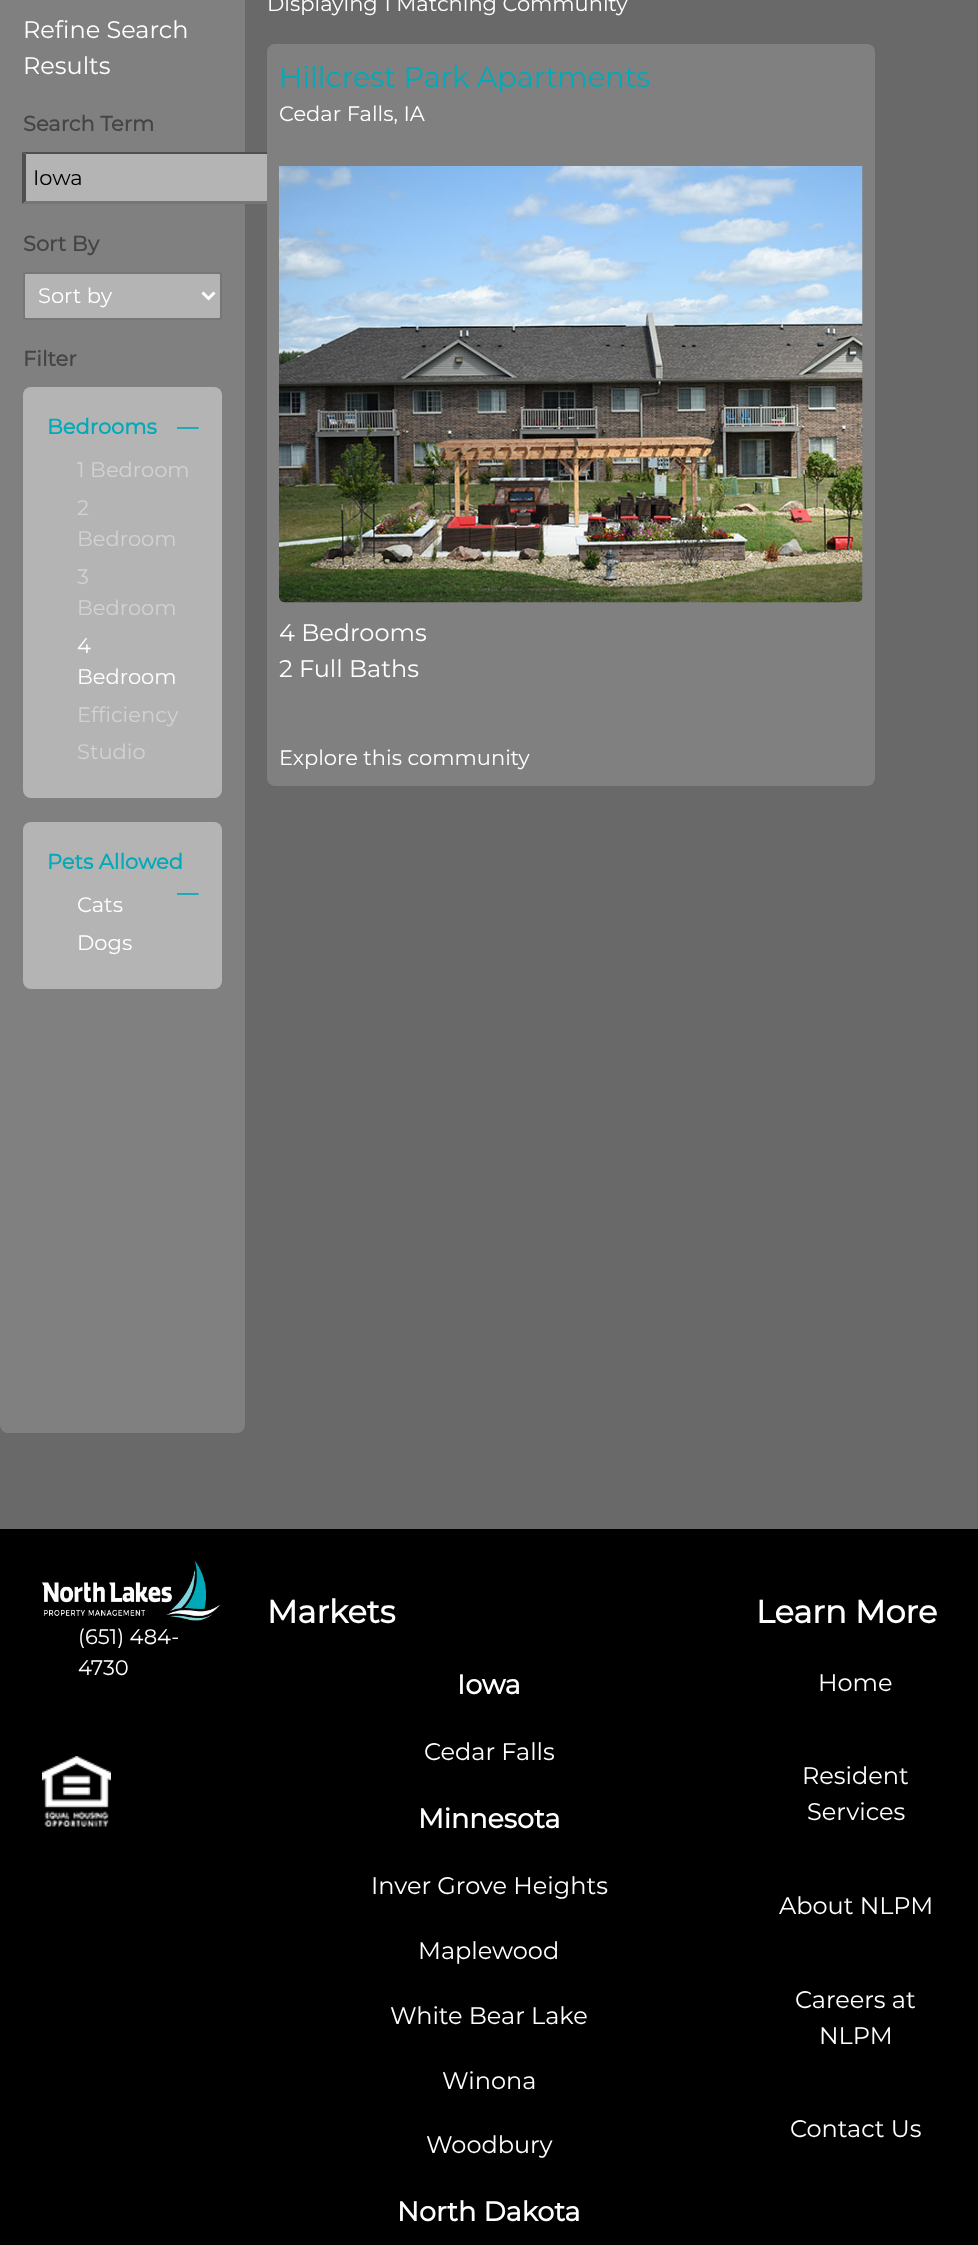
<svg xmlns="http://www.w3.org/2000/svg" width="978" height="2245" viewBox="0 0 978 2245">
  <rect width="100%" height="100%" fill="rgb(105,105,105)"/>
  <rect x="0" y="-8" width="245" height="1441" rx="8" fill="rgb(128,128,128)"/>
  <g font-family="Montserrat" font-size="24" font-weight="100" fill="rgb(255,255,255)">
    <text>
      <tspan x="23" y="38">Refine Search</tspan>
      <tspan x="23" y="74">Results</tspan>
    </text>
  </g>
  <text x="23" y="131" font-family="Montserrat" font-size="21" font-weight="bold" fill="rgb(69,69,69)">Search Term</text>
  <rect x="23" y="152" width="244" height="52" fill="rgb(180,180,180)"/>
  <path d="M22 152H382L380 154H26Z" fill="rgb(79,79,79)"/>
  <path d="M382 204H22L26 201H380Z" fill="rgb(118,118,118)"/>
  <path d="M22 204V152L26 154V201Z" fill="rgb(79,79,79)"/>
  <text x="33" y="185" font-family="Montserrat" font-size="21" font-weight="100" fill="rgb(0,0,0)">Iowa</text>
  <text x="23" y="251" font-family="Montserrat" font-size="21" font-weight="bold" fill="rgb(69,69,69)">Sort By</text>
  <rect x="24" y="273" width="197" height="46" rx="2" fill="rgb(180,180,180)" stroke="rgb(118,118,118)" stroke-width="2"/>
  <path d="M202.5 292.5L208.5 298.5L214.5 292.5" fill="none" stroke="rgb(255,255,255)" stroke-width="3"/>
  <text x="38" y="303" font-family="Montserrat" font-size="21" font-weight="100" fill="rgb(255,255,255)">Sort by</text>
  <text x="23" y="366" font-family="Montserrat" font-size="21" font-weight="bold" fill="rgb(69,69,69)">Filter</text>
  <rect x="23" y="387" width="199" height="411" rx="8" fill="rgb(180,180,180)"/>
  <g font-family="Montserrat" font-size="21" font-weight="bold" fill="rgb(0,170,184)">
    <text x="47" y="434">Bedrooms</text>
    <text x="177" y="434">—</text>
  </g>
  <g font-family="Montserrat" font-size="21" font-weight="100" fill="rgb(210,210,210)">
    <text>
      <tspan x="77" y="477">1 Bedroom</tspan>
      <tspan x="77" y="515">2</tspan>
      <tspan x="77" y="546">Bedroom</tspan>
      <tspan x="77" y="584">3</tspan>
      <tspan x="77" y="615">Bedroom</tspan>
    </text>
  </g>
  <g font-family="Montserrat" font-size="21" font-weight="100" fill="rgb(255,255,255)">
    <text>
      <tspan x="77" y="653">4</tspan>
      <tspan x="77" y="684">Bedroom</tspan>
    </text>
  </g>
  <g font-family="Montserrat" font-size="21" font-weight="100" fill="rgb(210,210,210)">
    <text>
      <tspan x="77" y="722">Efficiency</tspan>
      <tspan x="77" y="759">Studio</tspan>
    </text>
  </g>
  <rect x="23" y="822" width="199" height="167" rx="8" fill="rgb(180,180,180)"/>
  <g font-family="Montserrat" font-size="21" font-weight="bold" fill="rgb(0,170,184)">
    <text x="47" y="869">Pets Allowed</text>
    <text x="177" y="900">—</text>
  </g>
  <g font-family="Montserrat" font-size="21" font-weight="100" fill="rgb(255,255,255)">
    <text>
      <tspan x="77" y="912">Cats</tspan>
      <tspan x="77" y="950">Dogs</tspan>
    </text>
    <text x="267" y="11">Displaying 1 Matching Community</text>
  </g>
  <rect x="267" y="44" width="608" height="742" rx="8" fill="rgb(128,128,128)"/>
  <text x="279" y="87" font-family="Montserrat" font-size="28.75" font-weight="100" fill="rgb(0,170,184)">Hillcrest Park Apartments</text>
  <text x="279" y="121" font-family="Montserrat" font-size="21" font-weight="100" fill="rgb(255,255,255)">Cedar Falls, IA</text>
  <image x="279" y="166" width="584" height="437" href="pic1.png"/>
  <g font-family="Montserrat" font-size="24" font-weight="100" fill="rgb(255,255,255)">
    <text>
      <tspan x="279" y="641">4 Bedrooms</tspan>
      <tspan x="279" y="677">2 Full Baths</tspan>
    </text>
  </g>
  <text x="279" y="765" font-family="Montserrat" font-size="21" font-weight="100" fill="rgb(255,255,255)">Explore this community</text>
  <rect x="0" y="1529" width="978" height="716" fill="rgb(0,0,0)"/>
  <image x="42" y="1559" width="180" height="62" href="pic2.png"/>
  <g font-family="Montserrat" font-size="21" font-weight="100" fill="rgb(255,255,255)">
    <text>
      <tspan x="78" y="1644">(651) 484-</tspan>
      <tspan x="78" y="1675">4730</tspan>
    </text>
  </g>
  <image x="42" y="1756" width="69" height="71" href="pic3.png"/>
  <text x="267" y="1623" font-family="Montserrat" font-size="32" font-weight="bold" fill="rgb(255,255,255)">Markets</text>
  <text x="457" y="1694" font-family="Montserrat" font-size="27" font-weight="bold" fill="rgb(255,255,255)">Iowa</text>
  <text x="424" y="1760" font-family="Montserrat" font-size="24" font-weight="100" fill="rgb(255,255,255)">Cedar Falls</text>
  <text x="418" y="1828" font-family="Montserrat" font-size="27" font-weight="bold" fill="rgb(255,255,255)">Minnesota</text>
  <g font-family="Montserrat" font-size="24" font-weight="100" fill="rgb(255,255,255)">
    <text x="371" y="1894">Inver Grove Heights</text>
    <text x="418" y="1959">Maplewood</text>
    <text x="390" y="2024">White Bear Lake</text>
    <text x="442" y="2089">Winona</text>
    <text x="426" y="2153">Woodbury</text>
  </g>
  <text x="397" y="2221" font-family="Montserrat" font-size="27" font-weight="bold" fill="rgb(255,255,255)">North Dakota</text>
  <text x="756" y="1623" font-family="Montserrat" font-size="32" font-weight="bold" fill="rgb(255,255,255)">Learn More</text>
  <g font-family="Montserrat" font-size="24" font-weight="100" fill="rgb(255,255,255)">
    <text x="818" y="1691">Home</text>
    <text x="802" y="1784">Resident</text>
    <text x="807" y="1820">Services</text>
    <text x="779" y="1914">About NLPM</text>
    <text x="795" y="2008">Careers at</text>
    <text x="819" y="2044">NLPM</text>
    <text x="790" y="2137">Contact Us</text>
  </g>
</svg>
